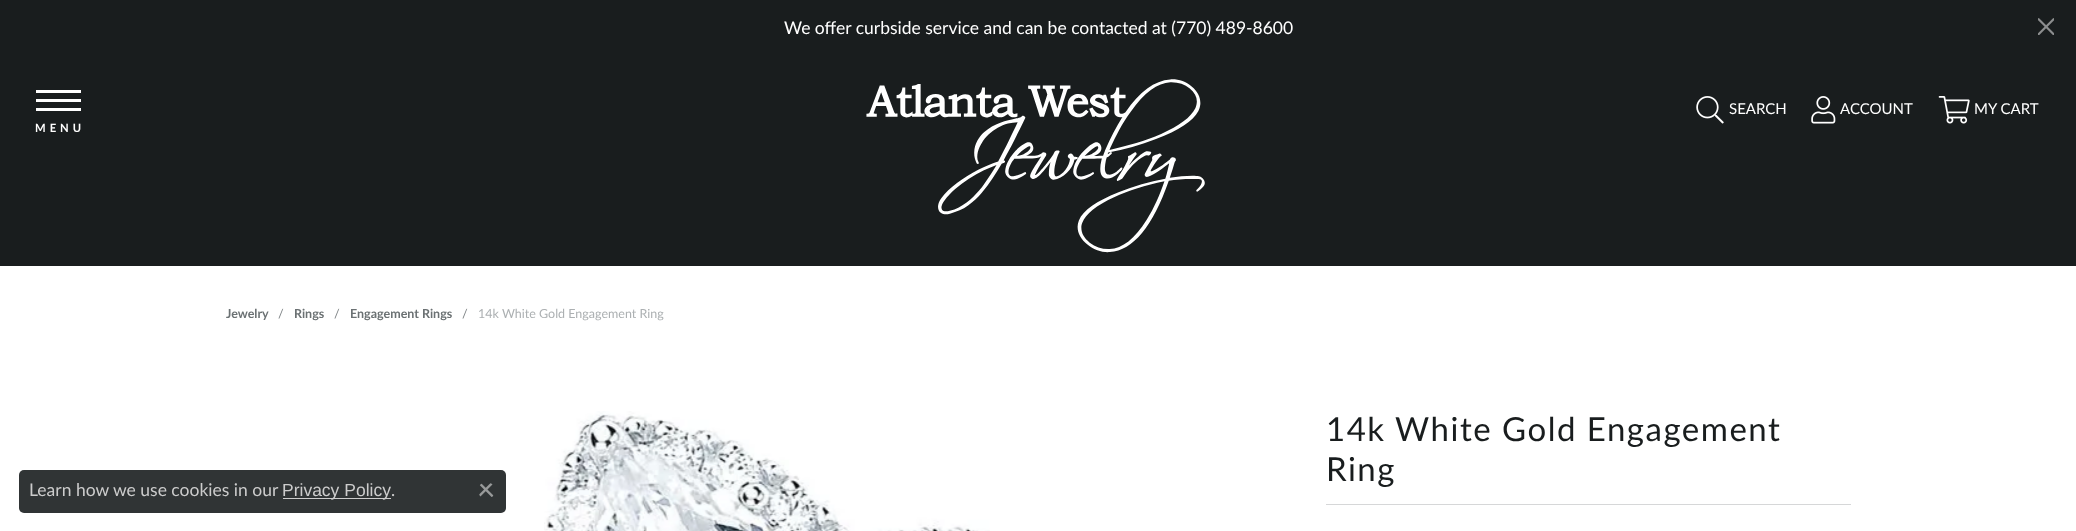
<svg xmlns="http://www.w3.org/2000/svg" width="2076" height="531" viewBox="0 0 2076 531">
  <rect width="100%" height="100%" fill="rgb(25,29,30)"/>
  <text x="784" y="34" font-family="Lato" font-size="17.5" fill="rgb(255,255,255)">We offer curbside service and can be contacted at (770) 489-8600</text>
  <image x="2038" y="18" width="16" height="17" href="pic1.png"/>
  <image x="866" y="79" width="339" height="174" href="pic2.png"/>
  <image x="1696" y="96" width="28" height="28" href="pic3.png"/>
  <text x="1729" y="114" font-family="Lato" font-size="15" fill="rgb(255,255,255)">SEARCH</text>
  <image x="1811" y="96" width="25" height="28" href="pic4.png"/>
  <text x="1840" y="114" font-family="Lato" font-size="15" fill="rgb(255,255,255)">ACCOUNT</text>
  <image x="1938" y="96" width="32" height="28" href="pic5.png"/>
  <text x="1974" y="114" font-family="Lato" font-size="15" fill="rgb(255,255,255)">MY CART</text>
  <rect x="36" y="90" width="45" height="3" fill="rgb(255,255,255)"/>
  <rect x="36" y="99" width="45" height="3" fill="rgb(255,255,255)"/>
  <rect x="36" y="108" width="45" height="3" fill="rgb(255,255,255)"/>
  <text x="35" y="132" font-family="Lato" font-size="11.25" font-weight="bold" letter-spacing="4" fill="rgb(255,255,255)">MENU</text>
  <rect x="0" y="266" width="2076" height="265" fill="rgb(255,255,255)"/>
  <text x="226" y="318" font-family="Lato" font-size="12.5" font-weight="bold" fill="rgb(107,113,115)">Jewelry</text>
  <text x="278" y="318" font-family="Lato" font-size="12.5" fill="rgb(129,134,136)">/</text>
  <text x="294" y="318" font-family="Lato" font-size="12.5" font-weight="bold" fill="rgb(107,113,115)">Rings</text>
  <text x="334" y="318" font-family="Lato" font-size="12.5" fill="rgb(129,134,136)">/</text>
  <text x="350" y="318" font-family="Lato" font-size="12.5" font-weight="bold" fill="rgb(107,113,115)">Engagement Rings</text>
  <text x="462" y="318" font-family="Lato" font-size="12.5" fill="rgb(129,134,136)">/</text>
  <text x="478" y="318" font-family="Lato" font-size="12.5" fill="rgb(172,176,178)">14k White Gold Engagement Ring</text>
  <image x="544" y="411" width="446" height="120" href="pic6.png"/>
  <g font-family="Lato" font-size="33" letter-spacing="1.5" fill="rgb(25,29,30)">
    <text>
      <tspan x="1326" y="441">14k White Gold Engagement</tspan>
      <tspan x="1326" y="481">Ring</tspan>
    </text>
  </g>
  <rect x="1326" y="504" width="525" height="1" fill="rgb(214,215,216)"/>
  <rect x="19" y="470" width="487" height="43" rx="5" fill="rgb(48,52,53)"/>
  <text x="29" y="496" font-family="Lato" font-size="17.5" fill="rgb(204,204,204)">Learn how we use cookies in our</text>
  <rect x="283" y="498" width="108" height="1" fill="rgb(204,204,204)"/>
  <text x="282" y="496" font-family="Liberation Sans" font-size="17.5" fill="rgb(204,204,204)">Privacy Policy</text>
  <text x="391" y="496" font-family="Lato" font-size="17.5" fill="rgb(204,204,204)">.</text>
  <image x="479" y="483" width="15" height="14" href="pic7.png"/>
</svg>
